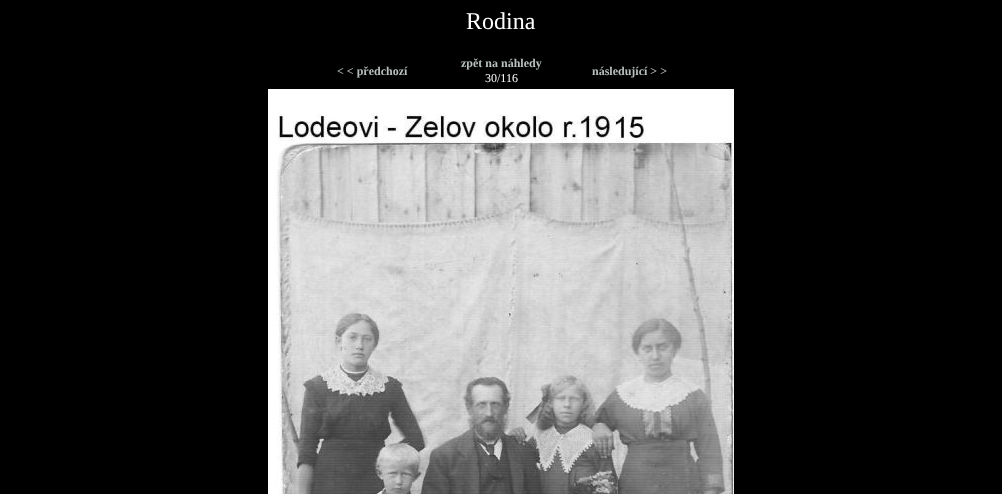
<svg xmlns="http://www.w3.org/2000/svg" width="1002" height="494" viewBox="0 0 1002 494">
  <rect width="100%" height="100%" fill="rgb(0,0,0)"/>
  <text x="466" y="29" font-family="Liberation Serif" font-size="24" fill="rgb(255,255,255)">Rodina</text>
  <g font-family="Liberation Serif" font-size="12" font-weight="bold" fill="rgb(184,192,192)">
    <text x="337" y="75">&lt; &lt; předchozí</text>
    <text x="461" y="67">zpět na náhledy</text>
  </g>
  <text x="485" y="82" font-family="Liberation Serif" font-size="12" fill="rgb(255,255,255)">30/116</text>
  <text x="592" y="75" font-family="Liberation Serif" font-size="12" font-weight="bold" fill="rgb(184,192,192)">následující &gt; &gt;</text>
  <image x="268" y="89" width="466" height="405" href="pic1.png"/>
</svg>
